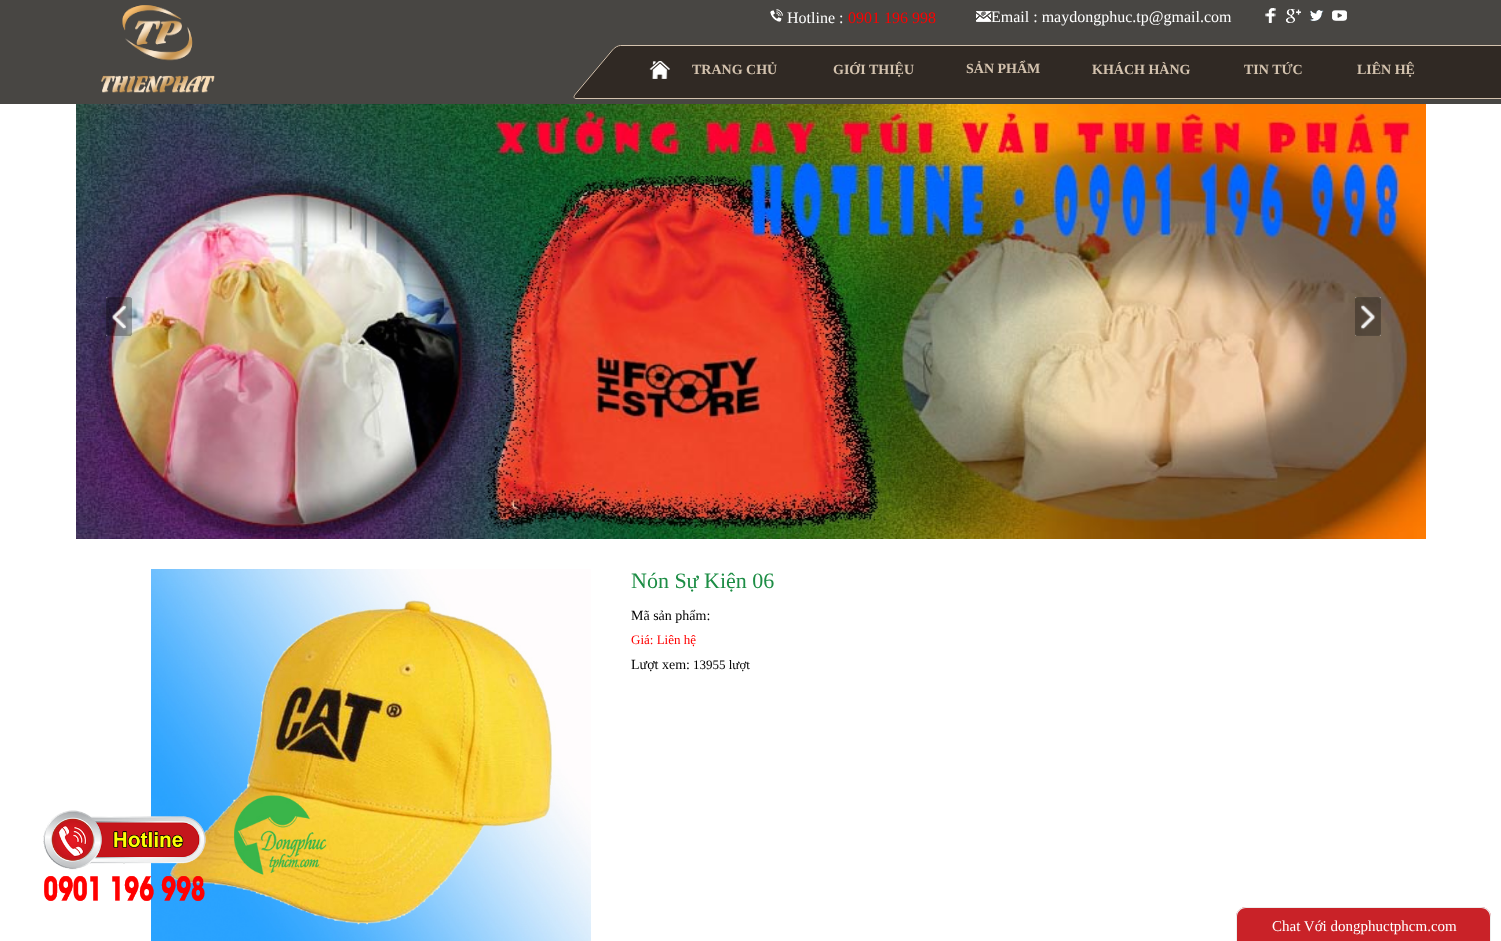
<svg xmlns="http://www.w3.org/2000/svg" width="1501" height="941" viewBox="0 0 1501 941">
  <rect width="100%" height="100%" fill="rgb(255,255,255)"/>
  <rect x="0" y="0" width="1501" height="104" fill="rgb(72,70,67)"/>
  <image x="101" y="5" width="114" height="88" href="pic1.png"/>
  <image x="770" y="9" width="13" height="13" href="pic2.png"/>
  <text x="787" y="23" font-family="Liberation Serif" font-size="16" fill="rgb(255,255,255)">Hotline :</text>
  <text x="848" y="23" font-family="Liberation Serif" font-size="16" fill="rgb(255,0,0)">0901 196 998</text>
  <image x="976" y="11" width="15" height="11" href="pic3.png"/>
  <text x="991" y="22" font-family="Liberation Serif" font-size="16" fill="rgb(255,255,255)">Email : maydongphuc.tp@gmail.com</text>
  <image x="1265" y="8" width="11" height="15" href="pic4.png"/>
  <image x="1286" y="9" width="15" height="14" href="pic5.png"/>
  <image x="1309" y="10" width="15" height="11" href="pic6.png"/>
  <image x="1332" y="10" width="15" height="11" href="pic7.png"/>
  <path d="M621 45H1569C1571 45 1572 47 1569 50L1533 94C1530 97 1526 99 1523 99H576C573 99 573 97 575 94L612 50C614 47 618 45 621 45Z" fill="rgb(48,41,36)"/>
  <path d="M620.5 45.5H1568C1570.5 45.5 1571 47.5 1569 50L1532 94C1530 96.5 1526 98.5 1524 98.5H576C573.5 98.5 573.5 96.5 575.5 94L612.5 50C614.5 47.5 618 45.5 620.5 45.5Z" fill="none" stroke="rgb(211,194,174)"/>
  <image x="649" y="61" width="21" height="18" href="pic8.png"/>
  <g font-family="Liberation Serif" font-size="14" font-weight="bold" fill="rgb(211,194,174)">
    <text x="692" y="74">TRANG CHỦ</text>
    <text x="833" y="74">GIỚI THIỆU</text>
    <text x="966" y="73">SẢN PHẨM</text>
    <text x="1092" y="74">KHÁCH HÀNG</text>
    <text x="1244" y="74">TIN TỨC</text>
    <text x="1357" y="74">LIÊN HỆ</text>
  </g>
  <image x="76" y="104" width="1350" height="435" href="pic9.png"/>
  <image x="106" y="297" width="26" height="39" href="pic10.png"/>
  <image x="1355" y="297" width="26" height="39" href="pic11.png"/>
  <image x="151" y="569" width="440" height="372" href="pic12.png"/>
  <text x="631" y="588" font-family="Liberation Serif" font-size="22" fill="rgb(29,141,69)">Nón Sự Kiện 06</text>
  <text x="631" y="620" font-family="Liberation Serif" font-size="14" fill="rgb(0,0,0)">Mã sản phẩm:</text>
  <text x="631" y="644" font-family="Liberation Serif" font-size="13" fill="rgb(255,0,0)">Giá: Liên hệ</text>
  <text x="631" y="669" font-family="Liberation Serif" font-size="14" fill="rgb(0,0,0)">Lượt xem:</text>
  <text x="693" y="669" font-family="Liberation Serif" font-size="13" fill="rgb(0,0,0)">13955 lượt</text>
  <image x="43" y="810" width="163" height="91" href="pic13.png"/>
  <path d="M1246 907H1481C1486.5 907 1491 911.5 1491 917V941H1236V917C1236 911.5 1240.5 907 1246 907Z" fill="rgb(201,34,40)"/>
  <path d="M1246 907H1481C1487 907 1491 911 1491 917V941H1236V917C1236 911 1240 907 1246 907ZM1246 908H1481C1486 908 1490 912 1490 917V941H1237V917C1237 912 1241 908 1246 908Z" fill="rgb(238,238,238)" fill-rule="evenodd"/>
  <text x="1272" y="931" font-family="Liberation Serif" font-size="15" fill="rgb(255,255,255)">Chat Với dongphuctphcm.com</text>
</svg>
